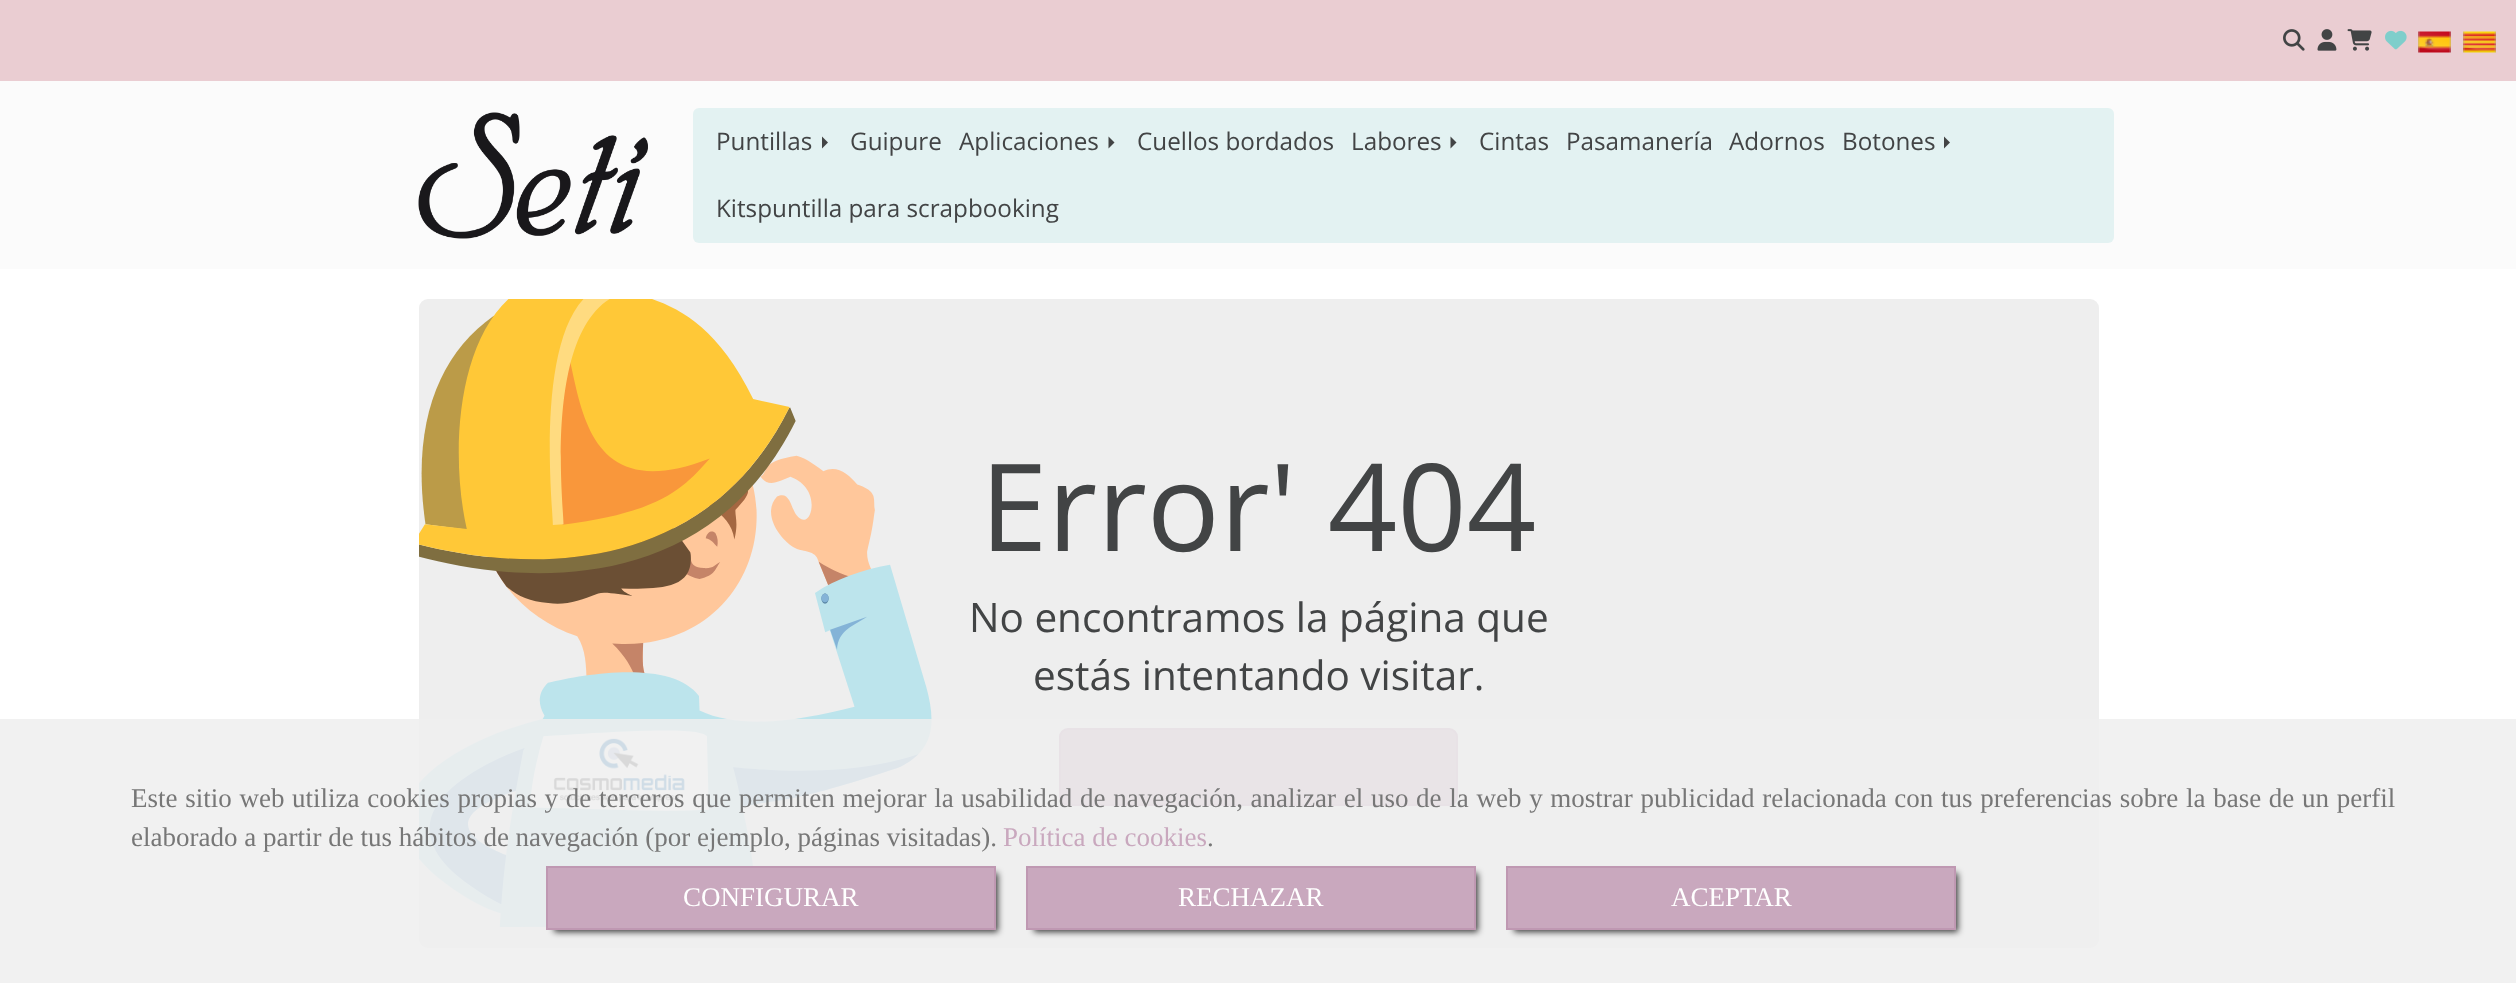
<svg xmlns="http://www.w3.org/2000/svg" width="2516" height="983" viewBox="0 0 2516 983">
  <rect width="100%" height="100%" fill="rgb(255,255,255)"/>
  <rect x="0" y="0" width="2516" height="81" fill="rgb(234,205,210)"/>
  <image x="2283" y="29" width="22" height="22" href="pic1.png"/>
  <image x="2317" y="29" width="20" height="22" href="pic2.png"/>
  <image x="2347" y="29" width="25" height="22" href="pic3.png"/>
  <image x="2385" y="30" width="22" height="20" href="pic4.png"/>
  <image x="2418" y="31" width="33" height="22" href="pic5.png"/>
  <image x="2463" y="31" width="33" height="22" href="pic6.png"/>
  <rect x="0" y="81" width="2516" height="188" fill="rgb(251,251,251)"/>
  <image x="418" y="112" width="230" height="127" href="pic7.png"/>
  <rect x="693" y="108" width="1421" height="135" rx="6" fill="rgb(227,242,242)"/>
  <text x="716" y="150" font-family="Open Sans" font-size="24.25" fill="rgb(66,68,69)">Puntillas</text>
  <path d="M822 148.5V136.5L828 142.5Z" fill="rgb(66,68,69)"/>
  <g font-family="Open Sans" font-size="24.25" fill="rgb(66,68,69)">
    <text x="850" y="150">Guipure</text>
    <text x="959" y="150">Aplicaciones</text>
  </g>
  <path d="M1108.5 148.5V136.5L1114.5 142.5Z" fill="rgb(66,68,69)"/>
  <g font-family="Open Sans" font-size="24.25" fill="rgb(66,68,69)">
    <text x="1137" y="150">Cuellos bordados</text>
    <text x="1351" y="150">Labores</text>
  </g>
  <path d="M1450.5 148.5V136.5L1456.5 142.5Z" fill="rgb(66,68,69)"/>
  <g font-family="Open Sans" font-size="24.25" fill="rgb(66,68,69)">
    <text x="1479" y="150">Cintas</text>
    <text x="1566" y="150">Pasamanería</text>
    <text x="1729" y="150">Adornos</text>
    <text x="1842" y="150">Botones</text>
  </g>
  <path d="M1944 148.5V136.5L1950 142.5Z" fill="rgb(66,68,69)"/>
  <text x="716" y="217" font-family="Open Sans" font-size="24.25" fill="rgb(66,68,69)">Kitspuntilla para scrapbooking</text>
  <rect x="419" y="299" width="1680" height="649" rx="9" fill="rgb(238,238,238)"/>
  <image x="419" y="299" width="513" height="628" href="pic8.png"/>
  <text x="980" y="551" font-family="Open Sans" font-size="121.5" fill="rgb(66,68,69)">Error' 404</text>
  <g font-family="Open Sans" font-size="40.5" fill="rgb(66,68,69)">
    <text x="969" y="632">No encontramos la página que</text>
    <text x="1033" y="690">estás intentando visitar.</text>
  </g>
  <rect x="1060" y="729" width="397" height="76" rx="8" fill="rgb(201,168,190)" stroke="rgb(191,152,178)" stroke-width="2"/>
  <rect x="0" y="963" width="2516" height="20" fill="rgb(254,252,252)"/>
  <rect x="0" y="719" width="2516" height="264" fill="rgba(238,238,238,0.85)"/>
  <g font-family="Liberation Serif" font-size="27" fill="rgb(119,119,119)">
    <text>
      <tspan x="131" y="807" word-spacing="0.95">Este sitio web utiliza cookies propias y de terceros que permiten mejorar la usabilidad de navegación, analizar el uso de la web y mostrar publicidad relacionada con tus preferencias sobre la base de un perfil</tspan>
      <tspan x="131" y="846">elaborado a partir de tus hábitos de navegación (por ejemplo, páginas visitadas).</tspan>
    </text>
  </g>
  <text x="1003" y="846" font-family="Liberation Serif" font-size="27" fill="rgb(201,168,190)">Política de cookies</text>
  <text x="1207" y="846" font-family="Liberation Serif" font-size="27" fill="rgb(119,119,119)">.</text>
  <rect x="554" y="873" width="444" height="59" fill="rgba(0,0,0,0.75)" filter="blur(3px)"/>
  <rect x="547" y="867" width="448" height="62" fill="rgb(201,168,190)" stroke="rgb(191,152,178)" stroke-width="2"/>
  <text x="683" y="906" font-family="Liberation Serif" font-size="27" fill="rgb(255,255,255)">CONFIGURAR</text>
  <rect x="1034" y="873" width="444" height="59" fill="rgba(0,0,0,0.75)" filter="blur(3px)"/>
  <rect x="1027" y="867" width="448" height="62" fill="rgb(201,168,190)" stroke="rgb(191,152,178)" stroke-width="2"/>
  <text x="1178" y="906" font-family="Liberation Serif" font-size="27" fill="rgb(255,255,255)">RECHAZAR</text>
  <rect x="1514" y="873" width="444" height="59" fill="rgba(0,0,0,0.75)" filter="blur(3px)"/>
  <rect x="1507" y="867" width="448" height="62" fill="rgb(201,168,190)" stroke="rgb(191,152,178)" stroke-width="2"/>
  <text x="1671" y="906" font-family="Liberation Serif" font-size="27" fill="rgb(255,255,255)">ACEPTAR</text>
</svg>
